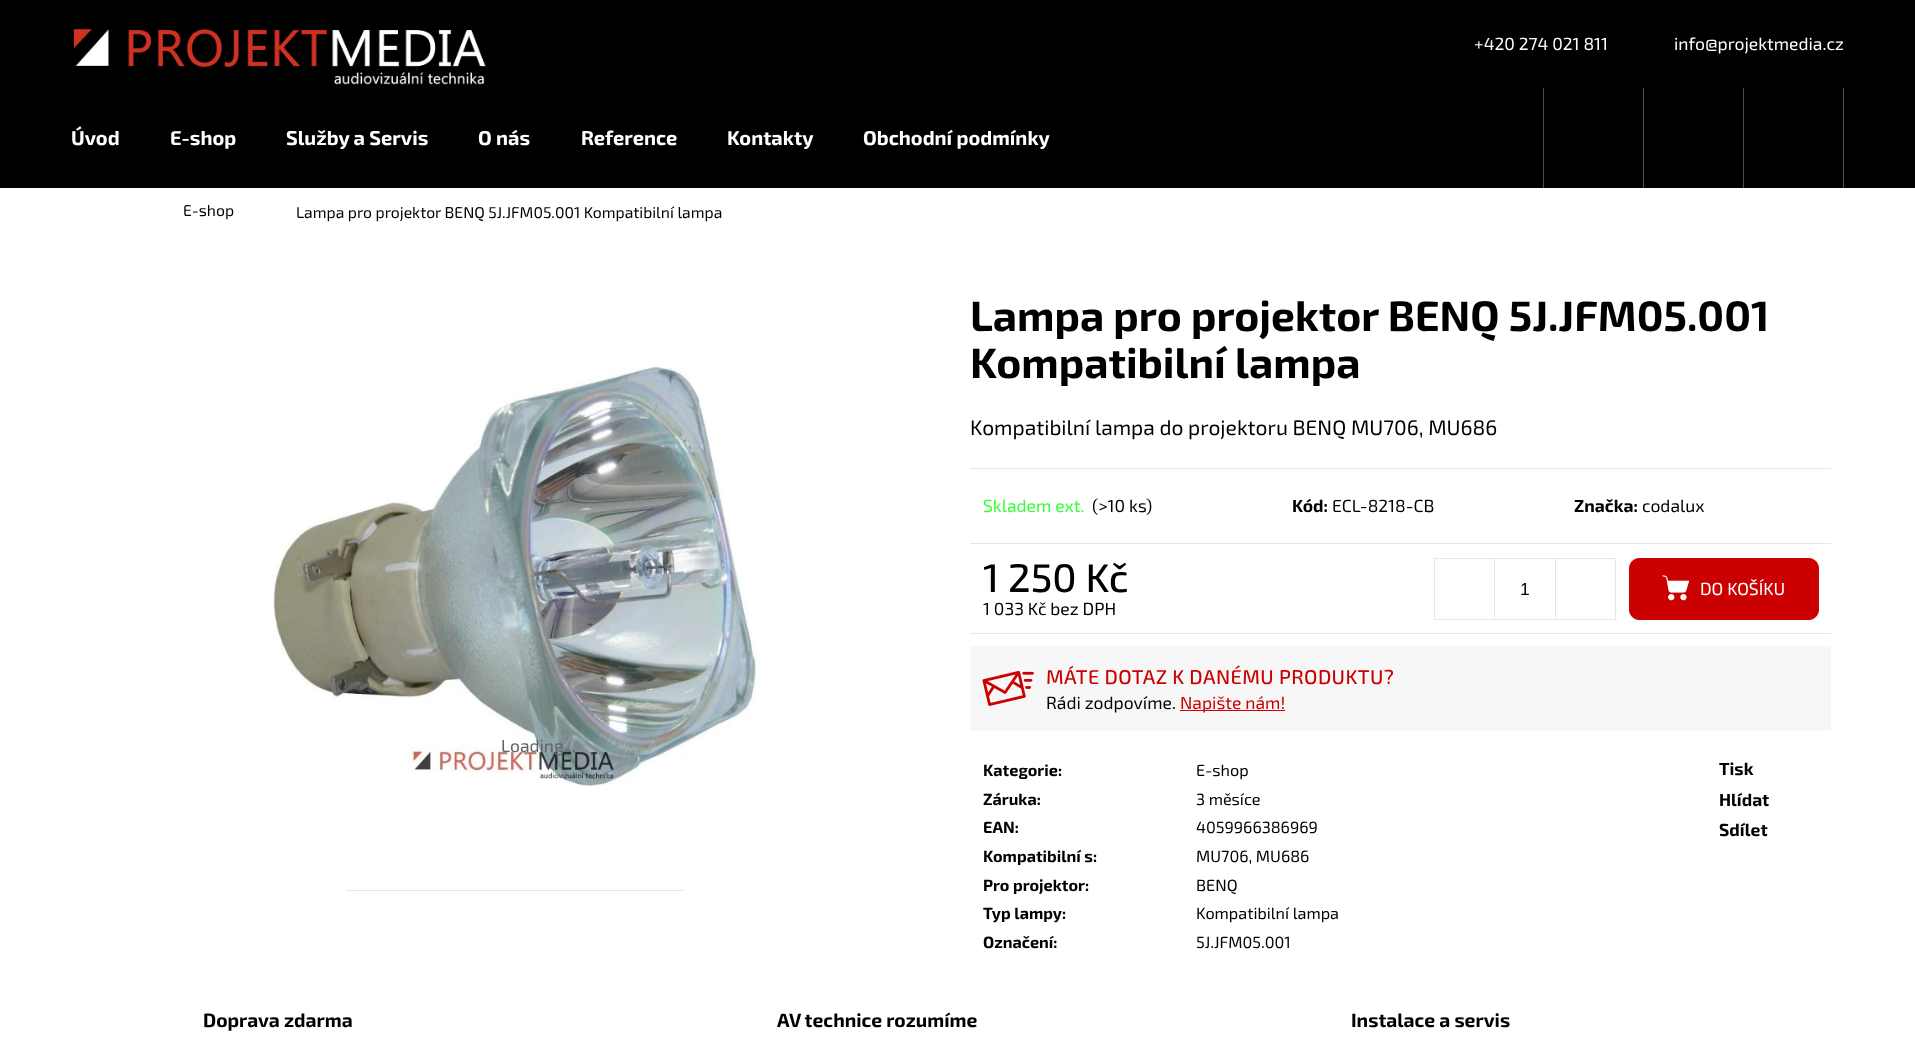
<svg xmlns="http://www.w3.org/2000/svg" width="1915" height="1043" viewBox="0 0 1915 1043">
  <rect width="100%" height="100%" fill="rgb(0,0,0)"/>
  <image x="73" y="29" width="413" height="56" href="pic1.png"/>
  <g font-family="'Exo 2'" font-size="17.5" fill="rgb(255,255,255)">
    <text x="1474" y="50">+420 274 021 811</text>
    <text x="1674" y="50">info@projektmedia.cz</text>
  </g>
  <g font-family="'Exo 2'" font-size="20" font-weight="bold" fill="rgb(255,255,255)">
    <text x="71" y="145">Úvod</text>
    <text x="170" y="145">E-shop</text>
    <text x="286" y="145">Služby a Servis</text>
    <text x="478" y="145">O nás</text>
    <text x="581" y="145">Reference</text>
    <text x="727" y="145">Kontakty</text>
    <text x="863" y="145">Obchodní podmínky</text>
  </g>
  <rect x="1843" y="88" width="1" height="100" fill="rgb(77,77,77)"/>
  <rect x="1543" y="88" width="1" height="100" fill="rgb(77,77,77)"/>
  <rect x="1643" y="88" width="1" height="100" fill="rgb(77,77,77)"/>
  <rect x="1743" y="88" width="1" height="100" fill="rgb(77,77,77)"/>
  <rect x="0" y="188" width="1915" height="855" fill="rgb(255,255,255)"/>
  <g font-family="'Exo 2'" font-size="15.75" fill="rgb(0,0,0)">
    <text x="183" y="216">E-shop</text>
    <text x="296" y="218">Lampa pro projektor BENQ 5J.JFM05.001 Kompatibilní lampa</text>
  </g>
  <image x="273" y="367" width="484" height="419" href="pic2.png"/>
  <text x="501" y="752" font-family="'Exo 2'" font-size="17.5" fill="rgb(96,100,101)">Loading...</text>
  <rect x="346" y="890" width="338" height="1" fill="rgb(230,230,230)"/>
  <g font-family="'Exo 2'" font-size="42.5" font-weight="bold" fill="rgb(0,0,0)">
    <text>
      <tspan x="970" y="331">Lampa pro projektor BENQ 5J.JFM05.001</tspan>
      <tspan x="970" y="378">Kompatibilní lampa</tspan>
    </text>
  </g>
  <text x="970" y="435" font-family="'Exo 2'" font-size="21" fill="rgb(0,0,0)">Kompatibilní lampa do projektoru BENQ MU706, MU686</text>
  <rect x="970" y="468" width="861" height="1" fill="rgb(231,231,231)"/>
  <rect x="970" y="543" width="861" height="1" fill="rgb(231,231,231)"/>
  <text x="983" y="512" font-family="'Exo 2'" font-size="17.5" fill="rgb(52,255,52)">Skladem ext.</text>
  <text x="1092" y="512" font-family="'Exo 2'" font-size="17.5" fill="rgb(0,0,0)">(&gt;10 ks)</text>
  <text x="1292" y="512" font-family="'Exo 2'" font-size="17.5" font-weight="bold" fill="rgb(0,0,0)">Kód:</text>
  <text x="1332" y="512" font-family="'Exo 2'" font-size="17.5" fill="rgb(0,0,0)">ECL-8218-CB</text>
  <text x="1574" y="512" font-family="'Exo 2'" font-size="17.5" font-weight="bold" fill="rgb(0,0,0)">Značka:</text>
  <text x="1642" y="512" font-family="'Exo 2'" font-size="17.5" fill="rgb(0,0,0)">codalux</text>
  <rect x="970" y="633" width="861" height="1" fill="rgb(231,231,231)"/>
  <text x="983" y="592" font-family="'Exo 2'" font-size="40" font-weight="500" fill="rgb(0,0,0)">1 250 Kč</text>
  <text x="983" y="615" font-family="'Exo 2'" font-size="17.5" fill="rgb(0,0,0)">1 033 Kč bez DPH</text>
  <rect x="1434.5" y="558.5" width="181" height="61" fill="none" stroke="rgb(230,230,230)"/>
  <rect x="1494" y="559" width="1" height="60" fill="rgb(230,230,230)"/>
  <text x="1520" y="595" font-family="Liberation Sans" font-size="17.5" fill="rgb(0,0,0)">1</text>
  <rect x="1555" y="559" width="1" height="60" fill="rgb(230,230,230)"/>
  <rect x="1629.5" y="558.5" width="189" height="61" rx="9.5" fill="rgb(203,0,0)" stroke="rgb(203,0,0)"/>
  <image x="1662" y="575" width="27" height="26" href="pic3.png"/>
  <text x="1700" y="595" font-family="'Exo 2'" font-size="17.5" fill="rgb(255,255,255)">DO KOŠÍKU</text>
  <rect x="970" y="646" width="861" height="85" fill="rgb(247,247,247)"/>
  <image x="982" y="670" width="52" height="36" href="pic4.png"/>
  <text x="1046" y="684" font-family="'Exo 2'" font-size="20" font-weight="500" letter-spacing="0.4" fill="rgb(203,0,0)">MÁTE DOTAZ K DANÉMU PRODUKTU?</text>
  <text x="1046" y="709" font-family="'Exo 2'" font-size="17.5" fill="rgb(0,0,0)">Rádi zodpovíme.</text>
  <rect x="1180" y="710" width="105" height="1" fill="rgb(203,0,0)"/>
  <text x="1180" y="709" font-family="'Exo 2'" font-size="17.5" fill="rgb(203,0,0)">Napište nám!</text>
  <text x="983" y="776" font-family="'Exo 2'" font-size="16.25" font-weight="bold" fill="rgb(0,0,0)">Kategorie:</text>
  <text x="1196" y="776" font-family="'Exo 2'" font-size="16.25" fill="rgb(0,0,0)">E-shop</text>
  <text x="983" y="805" font-family="'Exo 2'" font-size="16.25" font-weight="bold" fill="rgb(0,0,0)">Záruka:</text>
  <text x="1196" y="805" font-family="'Exo 2'" font-size="16.25" fill="rgb(0,0,0)">3 měsíce</text>
  <text x="983" y="833" font-family="'Exo 2'" font-size="16.25" font-weight="bold" fill="rgb(0,0,0)">EAN:</text>
  <text x="1196" y="833" font-family="'Exo 2'" font-size="16.25" fill="rgb(0,0,0)">4059966386969</text>
  <text x="983" y="862" font-family="'Exo 2'" font-size="16.25" font-weight="bold" fill="rgb(0,0,0)">Kompatibilní s:</text>
  <text x="1196" y="862" font-family="'Exo 2'" font-size="16.25" fill="rgb(0,0,0)">MU706, MU686</text>
  <text x="983" y="891" font-family="'Exo 2'" font-size="16.25" font-weight="bold" fill="rgb(0,0,0)">Pro projektor:</text>
  <text x="1196" y="891" font-family="'Exo 2'" font-size="16.25" fill="rgb(0,0,0)">BENQ</text>
  <text x="983" y="919" font-family="'Exo 2'" font-size="16.25" font-weight="bold" fill="rgb(0,0,0)">Typ lampy:</text>
  <text x="1196" y="919" font-family="'Exo 2'" font-size="16.25" fill="rgb(0,0,0)">Kompatibilní lampa</text>
  <text x="983" y="948" font-family="'Exo 2'" font-size="16.25" font-weight="bold" fill="rgb(0,0,0)">Označení:</text>
  <text x="1196" y="948" font-family="'Exo 2'" font-size="16.25" fill="rgb(0,0,0)">5J.JFM05.001</text>
  <g font-family="'Exo 2'" font-size="17.5" font-weight="bold" fill="rgb(0,0,0)">
    <text>
      <tspan x="1719" y="775">Tisk</tspan>
      <tspan x="1719" y="806">Hlídat</tspan>
      <tspan x="1719" y="836">Sdílet</tspan>
    </text>
  </g>
  <g font-family="'Exo 2'" font-size="19.25" font-weight="bold" fill="rgb(0,0,0)">
    <text x="203" y="1027">Doprava zdarma</text>
    <text x="777" y="1027">AV technice rozumíme</text>
    <text x="1351" y="1027">Instalace a servis</text>
  </g>
</svg>
